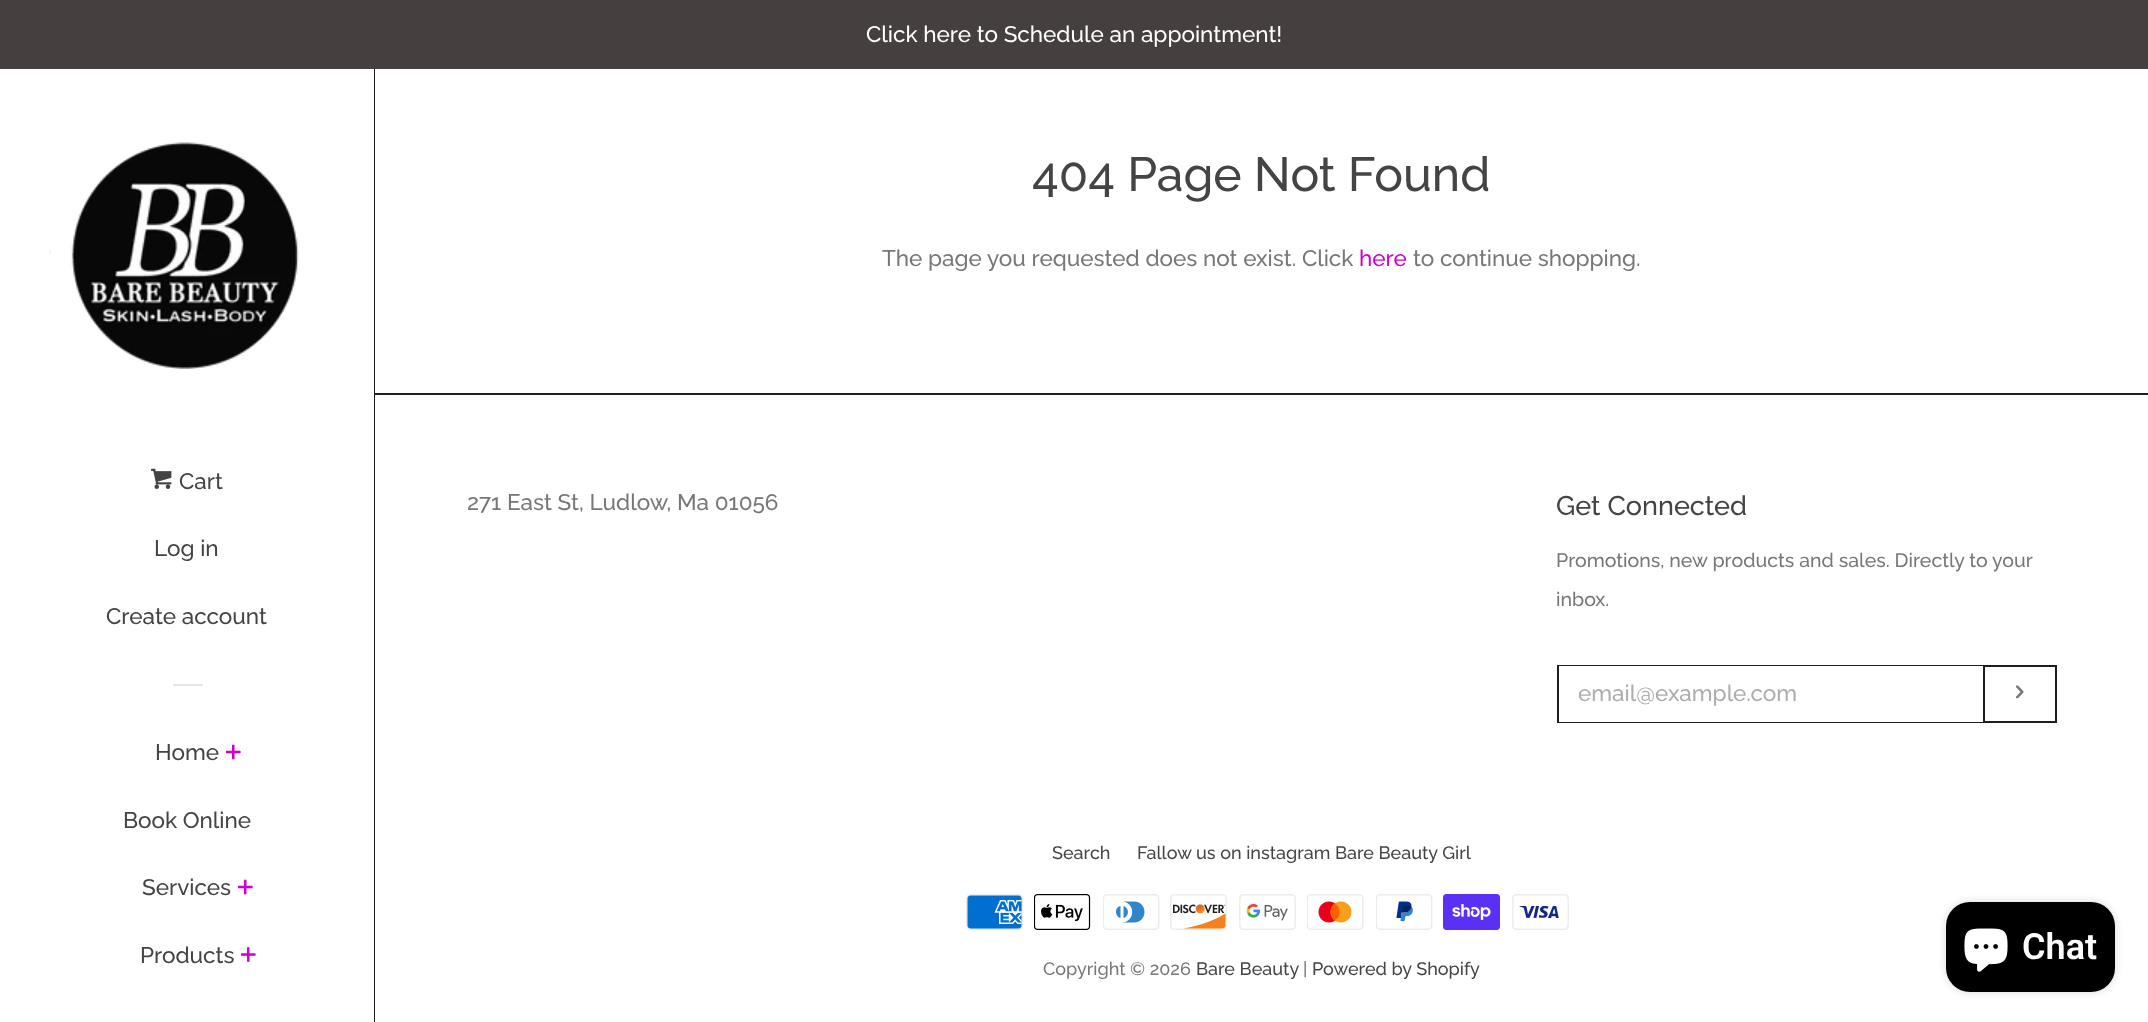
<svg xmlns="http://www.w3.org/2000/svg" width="2148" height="1022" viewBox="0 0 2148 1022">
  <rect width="100%" height="100%" fill="rgb(255,255,255)"/>
  <rect x="374" y="69" width="1" height="953" fill="rgb(32,29,29)"/>
  <image x="48" y="142" width="251" height="227" href="pic1.png"/>
  <image x="151" y="468" width="21" height="21" href="pic2.png"/>
  <g font-family="Raleway" font-size="22.5" font-weight="500" fill="rgb(68,68,68)">
    <text x="179" y="489">Cart</text>
    <text x="154" y="556">Log in</text>
    <text x="106" y="624">Create account</text>
  </g>
  <rect x="173" y="684" width="30" height="2" fill="rgb(230,230,230)"/>
  <text x="155" y="760" font-family="Raleway" font-size="22.5" font-weight="500" fill="rgb(68,68,68)">Home</text>
  <image x="225" y="744" width="16" height="16" href="pic3.png"/>
  <g font-family="Raleway" font-size="22.5" font-weight="500" fill="rgb(68,68,68)">
    <text x="123" y="828">Book Online</text>
    <text x="142" y="895">Services</text>
  </g>
  <image x="237" y="879" width="16" height="16" href="pic3.png"/>
  <text x="140" y="963" font-family="Raleway" font-size="22.5" font-weight="500" fill="rgb(68,68,68)">Products</text>
  <image x="240" y="947" width="16" height="15" href="pic4.png"/>
  <rect x="0" y="0" width="2148" height="69" fill="rgb(70,63,63)"/>
  <text x="866" y="42" font-family="Raleway" font-size="22.5" font-weight="500" fill="rgb(255,255,255)">Click here to Schedule an appointment!</text>
  <text x="1032" y="191" font-family="Raleway" font-size="48" font-weight="500" fill="rgb(68,68,68)">404 Page Not Found</text>
  <text x="882" y="266" font-family="Raleway" font-size="22.5" font-weight="500" fill="rgb(119,119,119)">The page you requested does not exist. Click</text>
  <text x="1359" y="266" font-family="Raleway" font-size="22.5" font-weight="500" fill="rgb(209,0,204)">here</text>
  <text x="1413" y="266" font-family="Raleway" font-size="22.5" font-weight="500" fill="rgb(119,119,119)">to continue shopping.</text>
  <rect x="375" y="393" width="1773" height="2" fill="rgb(32,29,29)"/>
  <text x="467" y="510" font-family="Raleway" font-size="22.5" font-weight="500" fill="rgb(119,119,119)">271 East St, Ludlow, Ma 01056</text>
  <text x="1556" y="515" font-family="Raleway" font-size="27" font-weight="500" fill="rgb(68,68,68)">Get Connected</text>
  <g font-family="Raleway" font-size="19.5" font-weight="500" fill="rgb(119,119,119)">
    <text x="1556" y="567">Promotions, new products and sales. Directly to your</text>
    <text x="1556" y="606">inbox.</text>
  </g>
  <rect x="1558" y="666" width="498" height="56" fill="none" stroke="rgb(32,29,29)" stroke-width="2"/>
  <rect x="1559" y="666" width="424" height="56" fill="rgb(255,255,255)"/>
  <rect x="1983" y="666" width="2" height="56" fill="rgb(32,29,29)"/>
  <text x="1578" y="701" font-family="Raleway" font-size="22.5" font-weight="500" fill="rgb(173,173,173)">email@example.com</text>
  <image x="2016" y="685" width="8" height="14" href="pic5.png"/>
  <g font-family="Raleway" font-size="18" font-weight="500" fill="rgb(68,68,68)">
    <text x="1052" y="859">Search</text>
    <text x="1137" y="859">Fallow us on instagram Bare Beauty Girl</text>
  </g>
  <image x="966" y="894" width="57" height="36" href="pic6.png"/>
  <image x="1034" y="894" width="57" height="36" href="pic7.png"/>
  <image x="1103" y="894" width="57" height="36" href="pic8.png"/>
  <image x="1170" y="894" width="57" height="36" href="pic9.png"/>
  <image x="1239" y="894" width="57" height="36" href="pic10.png"/>
  <image x="1307" y="894" width="57" height="36" href="pic11.png"/>
  <image x="1376" y="894" width="57" height="36" href="pic12.png"/>
  <image x="1443" y="894" width="57" height="36" href="pic13.png"/>
  <image x="1512" y="894" width="57" height="36" href="pic14.png"/>
  <text x="1043" y="975" font-family="Raleway" font-size="18" font-weight="500" fill="rgb(119,119,119)">Copyright © 2026</text>
  <text x="1196" y="975" font-family="Raleway" font-size="18" font-weight="500" fill="rgb(68,68,68)">Bare Beauty</text>
  <text x="1303" y="975" font-family="Raleway" font-size="18" font-weight="500" fill="rgb(119,119,119)">|</text>
  <text x="1312" y="975" font-family="Raleway" font-size="18" font-weight="500" fill="rgb(68,68,68)">Powered by Shopify</text>
  <rect x="1946" y="902" width="169" height="90" rx="24" fill="rgba(0,0,0,0.15)" filter="blur(4px)"/>
  <rect x="1946" y="902" width="169" height="90" rx="24" fill="rgb(0,0,0)"/>
  <image x="1964" y="928" width="44" height="44" href="pic15.png"/>
  <text x="2022" y="959" font-family="Roboto" font-size="36" font-weight="600" fill="rgb(255,255,255)">Chat</text>
</svg>
